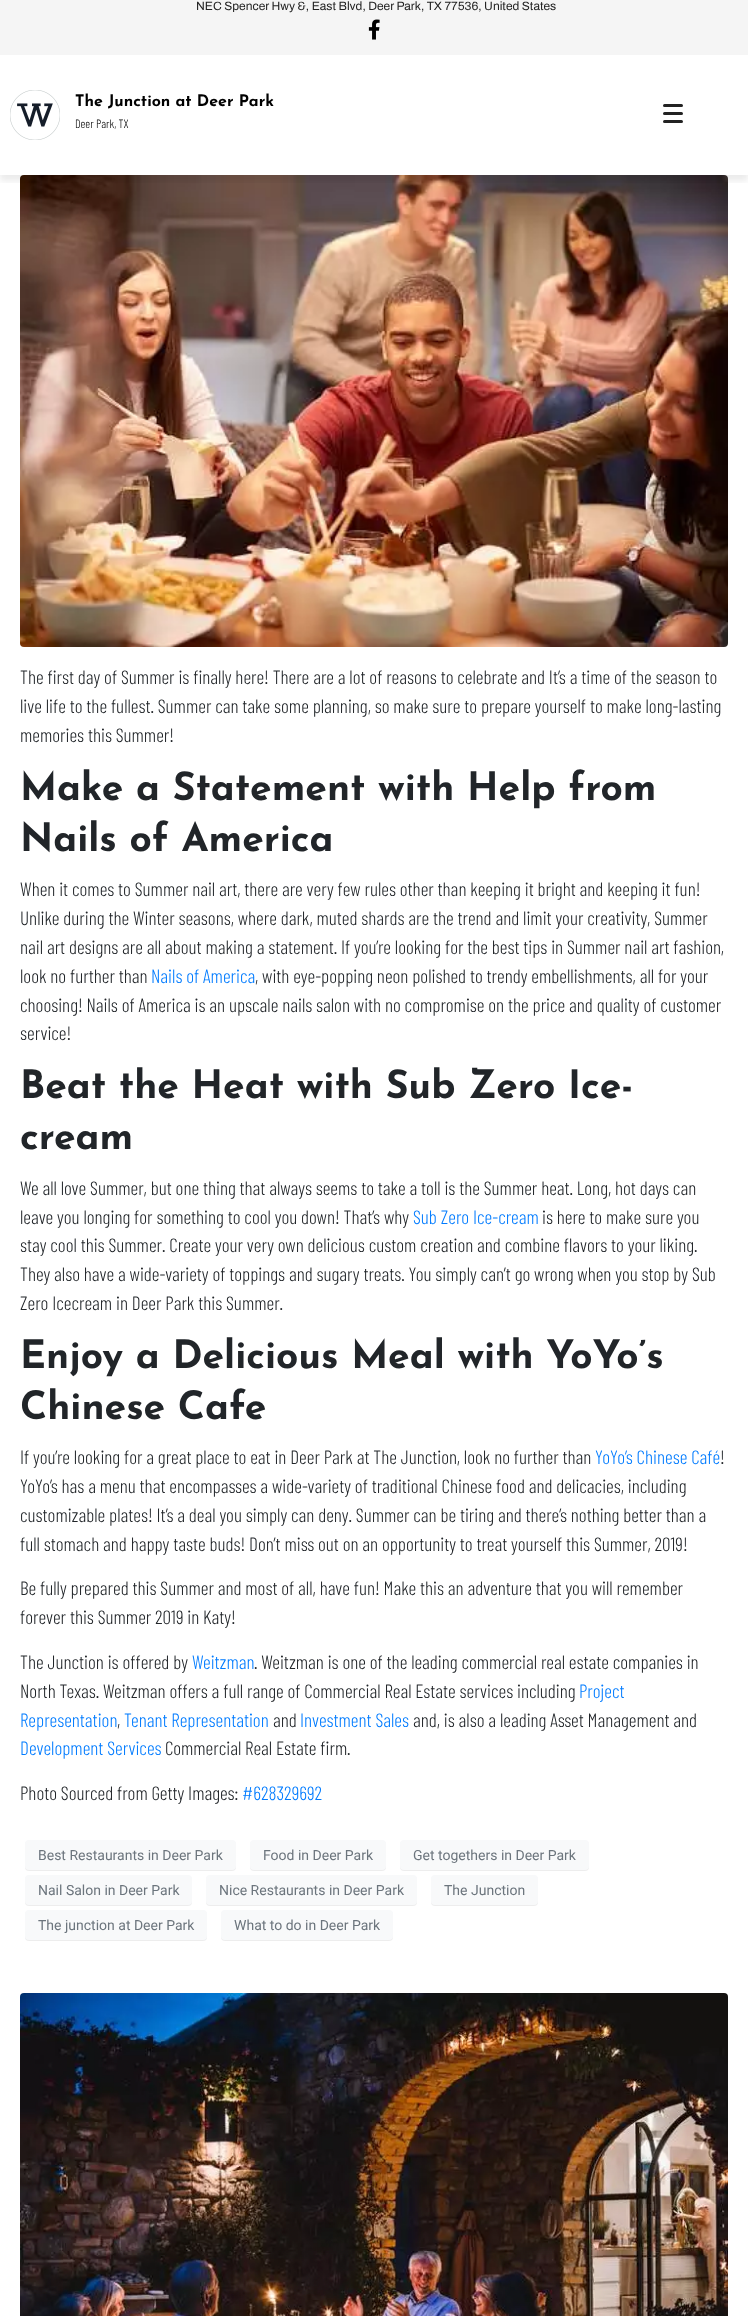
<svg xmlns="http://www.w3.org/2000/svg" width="748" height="2316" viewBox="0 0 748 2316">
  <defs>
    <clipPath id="clip1"><rect x="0" y="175" width="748" height="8"/></clipPath>
  </defs>
  <rect width="100%" height="100%" fill="rgb(255,255,255)"/>
  <rect x="0" y="0" width="748" height="55" fill="rgb(245,245,245)"/>
  <text x="196" y="10" font-family="Archivo" font-size="12" font-weight="600" fill="rgb(34,34,34)">NEC Spencer Hwy &amp;, East Blvd, Deer Park, TX 77536, United States</text>
  <image x="368" y="19" width="12" height="21" href="pic1.png"/>
  <image x="20" y="175" width="708" height="472" href="pic3.png"/>
  <g clip-path="url(#clip1)">
    <rect x="0" y="61" width="748" height="120" fill="rgba(0,0,0,0.08)" filter="blur(3px)"/>
  </g>
  <image x="10" y="90" width="50" height="50" href="pic2.png"/>
  <text x="75" y="106" font-family="Josefin Sans" font-size="16" font-weight="bold" fill="rgb(0,0,0)">The Junction at Deer Park</text>
  <text x="75" y="128" font-family="Barlow Condensed" font-size="12" font-weight="300" fill="rgb(0,0,0)">Deer Park, TX</text>
  <rect x="663" y="112" width="20" height="3" rx="1.5" fill="rgb(34,34,34)"/>
  <rect x="663" y="104" width="20" height="3" rx="1.5" fill="rgb(34,34,34)"/>
  <rect x="663" y="120" width="20" height="3" rx="1.5" fill="rgb(34,34,34)"/>
  <g font-family="Barlow Condensed" font-size="19.2" font-weight="300" fill="rgb(33,37,41)">
    <text>
      <tspan x="20" y="684">The first day of Summer is finally here! There are a lot of reasons to celebrate and It’s a time of the season to</tspan>
      <tspan x="20" y="713">live life to the fullest. Summer can take some planning, so make sure to prepare yourself to make long-lasting</tspan>
      <tspan x="20" y="742">memories this Summer!</tspan>
    </text>
  </g>
  <g font-family="Josefin Sans" font-size="39" font-weight="bold" fill="rgb(33,37,41)">
    <text>
      <tspan x="20" y="800">Make a Statement with Help from</tspan>
      <tspan x="20" y="851">Nails of America</tspan>
    </text>
  </g>
  <g font-family="Barlow Condensed" font-size="19.2" font-weight="300" fill="rgb(33,37,41)">
    <text>
      <tspan x="20" y="896">When it comes to Summer nail art, there are very few rules other than keeping it bright and keeping it fun!</tspan>
      <tspan x="20" y="925">Unlike during the Winter seasons, where dark, muted shards are the trend and limit your creativity, Summer</tspan>
      <tspan x="20" y="954">nail art designs are all about making a statement. If you’re looking for the best tips in Summer nail art fashion,</tspan>
      <tspan x="20" y="983">look no further than</tspan>
    </text>
  </g>
  <text x="151" y="983" font-family="Barlow Condensed" font-size="19.2" font-weight="300" fill="rgb(0,123,255)">Nails of America</text>
  <g font-family="Barlow Condensed" font-size="19.2" font-weight="300" fill="rgb(33,37,41)">
    <text x="255" y="983">, with eye-popping neon polished to trendy embellishments, all for your</text>
    <text>
      <tspan x="20" y="1012">choosing! Nails of America is an upscale nails salon with no compromise on the price and quality of customer</tspan>
      <tspan x="20" y="1040">service!</tspan>
    </text>
  </g>
  <g font-family="Josefin Sans" font-size="39" font-weight="bold" fill="rgb(33,37,41)">
    <text>
      <tspan x="20" y="1098">Beat the Heat with Sub Zero Ice-</tspan>
      <tspan x="20" y="1149">cream</tspan>
    </text>
  </g>
  <g font-family="Barlow Condensed" font-size="19.2" font-weight="300" fill="rgb(33,37,41)">
    <text>
      <tspan x="20" y="1195">We all love Summer, but one thing that always seems to take a toll is the Summer heat. Long, hot days can</tspan>
      <tspan x="20" y="1224">leave you longing for something to cool you down! That’s why</tspan>
    </text>
  </g>
  <text x="413" y="1224" font-family="Barlow Condensed" font-size="19.2" font-weight="300" fill="rgb(0,123,255)">Sub Zero Ice-cream</text>
  <g font-family="Barlow Condensed" font-size="19.2" font-weight="300" fill="rgb(33,37,41)">
    <text x="542" y="1224">is here to make sure you</text>
    <text>
      <tspan x="20" y="1252">stay cool this Summer. Create your very own delicious custom creation and combine flavors to your liking.</tspan>
      <tspan x="20" y="1281">They also have a wide-variety of toppings and sugary treats. You simply can’t go wrong when you stop by Sub</tspan>
      <tspan x="20" y="1310">Zero Icecream in Deer Park this Summer.</tspan>
    </text>
  </g>
  <g font-family="Josefin Sans" font-size="39" font-weight="bold" fill="rgb(33,37,41)">
    <text>
      <tspan x="20" y="1368">Enjoy a Delicious Meal with YoYo’s</tspan>
      <tspan x="20" y="1419">Chinese Cafe</tspan>
    </text>
  </g>
  <text x="20" y="1464" font-family="Barlow Condensed" font-size="19.2" font-weight="300" fill="rgb(33,37,41)">If you’re looking for a great place to eat in Deer Park at The Junction, look no further than</text>
  <text x="595" y="1464" font-family="Barlow Condensed" font-size="19.2" font-weight="300" fill="rgb(0,123,255)">YoYo’s Chinese Café</text>
  <g font-family="Barlow Condensed" font-size="19.2" font-weight="300" fill="rgb(33,37,41)">
    <text x="720" y="1464">!</text>
    <text>
      <tspan x="20" y="1493">YoYo’s has a menu that encompasses a wide-variety of traditional Chinese food and delicacies, including</tspan>
      <tspan x="20" y="1522">customizable plates! It’s a deal you simply can deny. Summer can be tiring and there’s nothing better than a</tspan>
      <tspan x="20" y="1551">full stomach and happy taste buds! Don’t miss out on an opportunity to treat yourself this Summer, 2019!</tspan>
    </text>
    <text>
      <tspan x="20" y="1595">Be fully prepared this Summer and most of all, have fun! Make this an adventure that you will remember</tspan>
      <tspan x="20" y="1624">forever this Summer 2019 in Katy!</tspan>
    </text>
    <text x="20" y="1669">The Junction is offered by</text>
  </g>
  <text x="192" y="1669" font-family="Barlow Condensed" font-size="19.2" font-weight="300" fill="rgb(0,123,255)">Weitzman</text>
  <g font-family="Barlow Condensed" font-size="19.2" font-weight="300" fill="rgb(33,37,41)">
    <text x="254" y="1669">. Weitzman is one of the leading commercial real estate companies in</text>
    <text x="20" y="1698">North Texas. Weitzman offers a full range of Commercial Real Estate services including</text>
  </g>
  <g font-family="Barlow Condensed" font-size="19.2" font-weight="300" fill="rgb(0,123,255)">
    <text x="579" y="1698">Project</text>
    <text x="20" y="1727">Representation</text>
  </g>
  <text x="117" y="1727" font-family="Barlow Condensed" font-size="19.2" font-weight="300" fill="rgb(33,37,41)">,</text>
  <text x="124" y="1727" font-family="Barlow Condensed" font-size="19.2" font-weight="300" fill="rgb(0,123,255)">Tenant Representation</text>
  <text x="273" y="1727" font-family="Barlow Condensed" font-size="19.2" font-weight="300" fill="rgb(33,37,41)">and</text>
  <text x="300" y="1727" font-family="Barlow Condensed" font-size="19.2" font-weight="300" fill="rgb(0,123,255)">Investment Sales</text>
  <text x="413" y="1727" font-family="Barlow Condensed" font-size="19.2" font-weight="300" fill="rgb(33,37,41)">and, is also a leading Asset Management and</text>
  <text x="20" y="1755" font-family="Barlow Condensed" font-size="19.2" font-weight="300" fill="rgb(0,123,255)">Development Services</text>
  <g font-family="Barlow Condensed" font-size="19.2" font-weight="300" fill="rgb(33,37,41)">
    <text x="165" y="1755">Commercial Real Estate firm.</text>
    <text x="20" y="1800">Photo Sourced from Getty Images:</text>
  </g>
  <text x="242" y="1800" font-family="Barlow Condensed" font-size="19.2" font-weight="300" fill="rgb(0,123,255)">#628329692</text>
  <rect x="25" y="1841" width="211" height="30" rx="4" fill="rgba(0,0,0,0.07)" filter="blur(0.5px)"/>
  <rect x="25" y="1840" width="211" height="30" rx="4" fill="rgb(248,249,250)"/>
  <text x="38" y="1860" font-family="Roboto" font-size="14" fill="rgb(108,117,125)">Best Restaurants in Deer Park</text>
  <rect x="250" y="1841" width="136" height="30" rx="4" fill="rgba(0,0,0,0.07)" filter="blur(0.5px)"/>
  <rect x="250" y="1840" width="136" height="30" rx="4" fill="rgb(248,249,250)"/>
  <text x="263" y="1860" font-family="Roboto" font-size="14" fill="rgb(108,117,125)">Food in Deer Park</text>
  <rect x="400" y="1841" width="189" height="30" rx="4" fill="rgba(0,0,0,0.07)" filter="blur(0.5px)"/>
  <rect x="400" y="1840" width="189" height="30" rx="4" fill="rgb(248,249,250)"/>
  <text x="413" y="1860" font-family="Roboto" font-size="14" fill="rgb(108,117,125)">Get togethers in Deer Park</text>
  <rect x="25" y="1876" width="167" height="30" rx="4" fill="rgba(0,0,0,0.07)" filter="blur(0.5px)"/>
  <rect x="25" y="1875" width="167" height="30" rx="4" fill="rgb(248,249,250)"/>
  <text x="38" y="1895" font-family="Roboto" font-size="14" fill="rgb(108,117,125)">Nail Salon in Deer Park</text>
  <rect x="206" y="1876" width="211" height="30" rx="4" fill="rgba(0,0,0,0.07)" filter="blur(0.5px)"/>
  <rect x="206" y="1875" width="211" height="30" rx="4" fill="rgb(248,249,250)"/>
  <text x="219" y="1895" font-family="Roboto" font-size="14" fill="rgb(108,117,125)">Nice Restaurants in Deer Park</text>
  <rect x="431" y="1876" width="107" height="30" rx="4" fill="rgba(0,0,0,0.07)" filter="blur(0.5px)"/>
  <rect x="431" y="1875" width="107" height="30" rx="4" fill="rgb(248,249,250)"/>
  <text x="444" y="1895" font-family="Roboto" font-size="14" fill="rgb(108,117,125)">The Junction</text>
  <rect x="25" y="1911" width="182" height="30" rx="4" fill="rgba(0,0,0,0.07)" filter="blur(0.5px)"/>
  <rect x="25" y="1910" width="182" height="30" rx="4" fill="rgb(248,249,250)"/>
  <text x="38" y="1930" font-family="Roboto" font-size="14" fill="rgb(108,117,125)">The junction at Deer Park</text>
  <rect x="221" y="1911" width="172" height="30" rx="4" fill="rgba(0,0,0,0.07)" filter="blur(0.5px)"/>
  <rect x="221" y="1910" width="172" height="30" rx="4" fill="rgb(248,249,250)"/>
  <text x="234" y="1930" font-family="Roboto" font-size="14" fill="rgb(108,117,125)">What to do in Deer Park</text>
  <image x="20" y="1993" width="708" height="323" href="pic4.png"/>
</svg>
